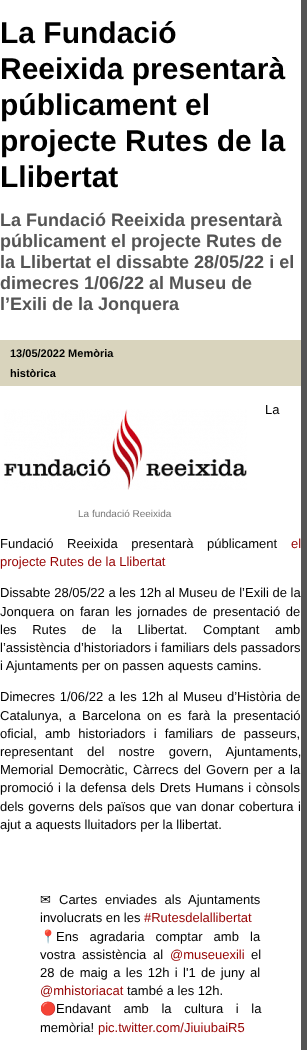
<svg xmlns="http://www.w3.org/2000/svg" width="307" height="1050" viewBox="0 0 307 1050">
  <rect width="100%" height="100%" fill="rgb(84,84,84)"/>
  <rect x="0" y="0" width="301" height="1050" fill="rgb(255,255,255)"/>
  <g font-family="Liberation Sans" font-size="30" font-weight="bold" fill="rgb(0,0,0)">
    <text>
      <tspan x="0" y="43">La Fundació</tspan>
      <tspan x="0" y="79">Reeixida presentarà</tspan>
      <tspan x="0" y="115">públicament el</tspan>
      <tspan x="0" y="151">projecte Rutes de la</tspan>
      <tspan x="0" y="187">Llibertat</tspan>
    </text>
  </g>
  <g font-family="Liberation Sans" font-size="18" font-weight="bold" fill="rgb(85,85,85)">
    <text>
      <tspan x="0" y="226">La Fundació Reeixida presentarà</tspan>
      <tspan x="0" y="247">públicament el projecte Rutes de</tspan>
      <tspan x="0" y="268">la Llibertat el dissabte 28/05/22 i el</tspan>
      <tspan x="0" y="289">dimecres 1/06/22 al Museu de</tspan>
      <tspan x="0" y="310">l’Exili de la Jonquera</tspan>
    </text>
  </g>
  <rect x="0" y="340" width="301" height="46" fill="rgb(217,212,189)"/>
  <g font-family="Liberation Sans" font-size="11" font-weight="bold" fill="rgb(0,0,0)">
    <text>
      <tspan x="10" y="357">13/05/2022 Memòria</tspan>
      <tspan x="10" y="377">històrica</tspan>
    </text>
  </g>
  <g font-family="Liberation Sans" font-size="13" fill="rgb(0,0,0)">
    <text x="265" y="414">La</text>
    <text x="0" y="548" word-spacing="10">Fundació Reeixida presentarà públicament</text>
  </g>
  <g font-family="Liberation Sans" font-size="13" fill="rgb(150,0,0)">
    <text x="291" y="548">el</text>
    <text x="0" y="566">projecte Rutes de la Llibertat</text>
  </g>
  <g font-family="Liberation Sans" font-size="13" fill="rgb(0,0,0)">
    <text>
      <tspan x="0" y="597">Dissabte 28/05/22 a les 12h al Museu de l’Exili de la</tspan>
      <tspan x="0" y="616" word-spacing="2">Jonquera on faran les jornades de presentació de</tspan>
      <tspan x="0" y="634" word-spacing="12">les Rutes de la Llibertat. Comptant amb</tspan>
      <tspan x="0" y="652">l’assistència d’historiadors i familiars dels passadors</tspan>
      <tspan x="0" y="670">i Ajuntaments per on passen aquests camins.</tspan>
    </text>
    <text>
      <tspan x="0" y="701" word-spacing="1.25">Dimecres 1/06/22 a les 12h al Museu d’Història de</tspan>
      <tspan x="0" y="720" word-spacing="2.75">Catalunya, a Barcelona on es farà la presentació</tspan>
      <tspan x="0" y="738" word-spacing="4.5">oficial, amb historiadors i familiars de passeurs,</tspan>
      <tspan x="0" y="756" word-spacing="10.5">representant del nostre govern, Ajuntaments,</tspan>
      <tspan x="0" y="774" word-spacing="1.5">Memorial Democràtic, Càrrecs del Govern per a la</tspan>
      <tspan x="0" y="792" word-spacing="1">promoció i la defensa dels Drets Humans i cònsols</tspan>
      <tspan x="0" y="811" word-spacing="0.75">dels governs dels països que van donar cobertura i</tspan>
      <tspan x="0" y="829">ajut a aquests lluitadors per la llibertat.</tspan>
    </text>
  </g>
  <text x="40" y="904" font-family="DejaVu Sans" font-size="13" fill="rgb(0,0,0)">✉</text>
  <g font-family="Liberation Sans" font-size="13" fill="rgb(0,0,0)">
    <text x="59" y="904" word-spacing="4">Cartes enviades als Ajuntaments</text>
    <text x="40" y="922">involucrats en les</text>
  </g>
  <text x="144" y="922" font-family="Liberation Sans" font-size="13" fill="rgb(150,0,0)">#Rutesdelallibertat</text>
  <text x="40" y="941" font-family="Noto Color Emoji" font-size="13" fill="rgb(0,0,0)">📍</text>
  <g font-family="Liberation Sans" font-size="13" fill="rgb(0,0,0)">
    <text x="56" y="941" word-spacing="7.5">Ens agradaria comptar amb la</text>
    <text x="40" y="959" word-spacing="3">vostra assistència al</text>
  </g>
  <text x="170" y="959" font-family="Liberation Sans" font-size="13" fill="rgb(150,0,0)">@museuexili</text>
  <g font-family="Liberation Sans" font-size="13" fill="rgb(0,0,0)">
    <text x="251" y="959">el</text>
    <text x="40" y="977" word-spacing="1.75">28 de maig a les 12h i l'1 de juny al</text>
  </g>
  <text x="40" y="995" font-family="Liberation Sans" font-size="13" fill="rgb(150,0,0)">@mhistoriacat</text>
  <text x="127" y="995" font-family="Liberation Sans" font-size="13" fill="rgb(0,0,0)">també a les 12h.</text>
  <text x="40" y="1013" font-family="Noto Color Emoji" font-size="13" fill="rgb(0,0,0)">🔴</text>
  <g font-family="Liberation Sans" font-size="13" fill="rgb(0,0,0)">
    <text x="56" y="1013" word-spacing="9">Endavant amb la cultura i la</text>
    <text x="40" y="1032">memòria!</text>
  </g>
  <text x="98" y="1032" font-family="Liberation Sans" font-size="13" fill="rgb(150,0,0)">pic.twitter.com/JiuiubaiR5</text>
  <image x="4" y="409" width="243" height="81" href="pic1.png"/>
  <text x="78" y="517" font-family="Liberation Sans" font-size="10" fill="rgb(119,119,119)">La fundació Reeixida</text>
</svg>
